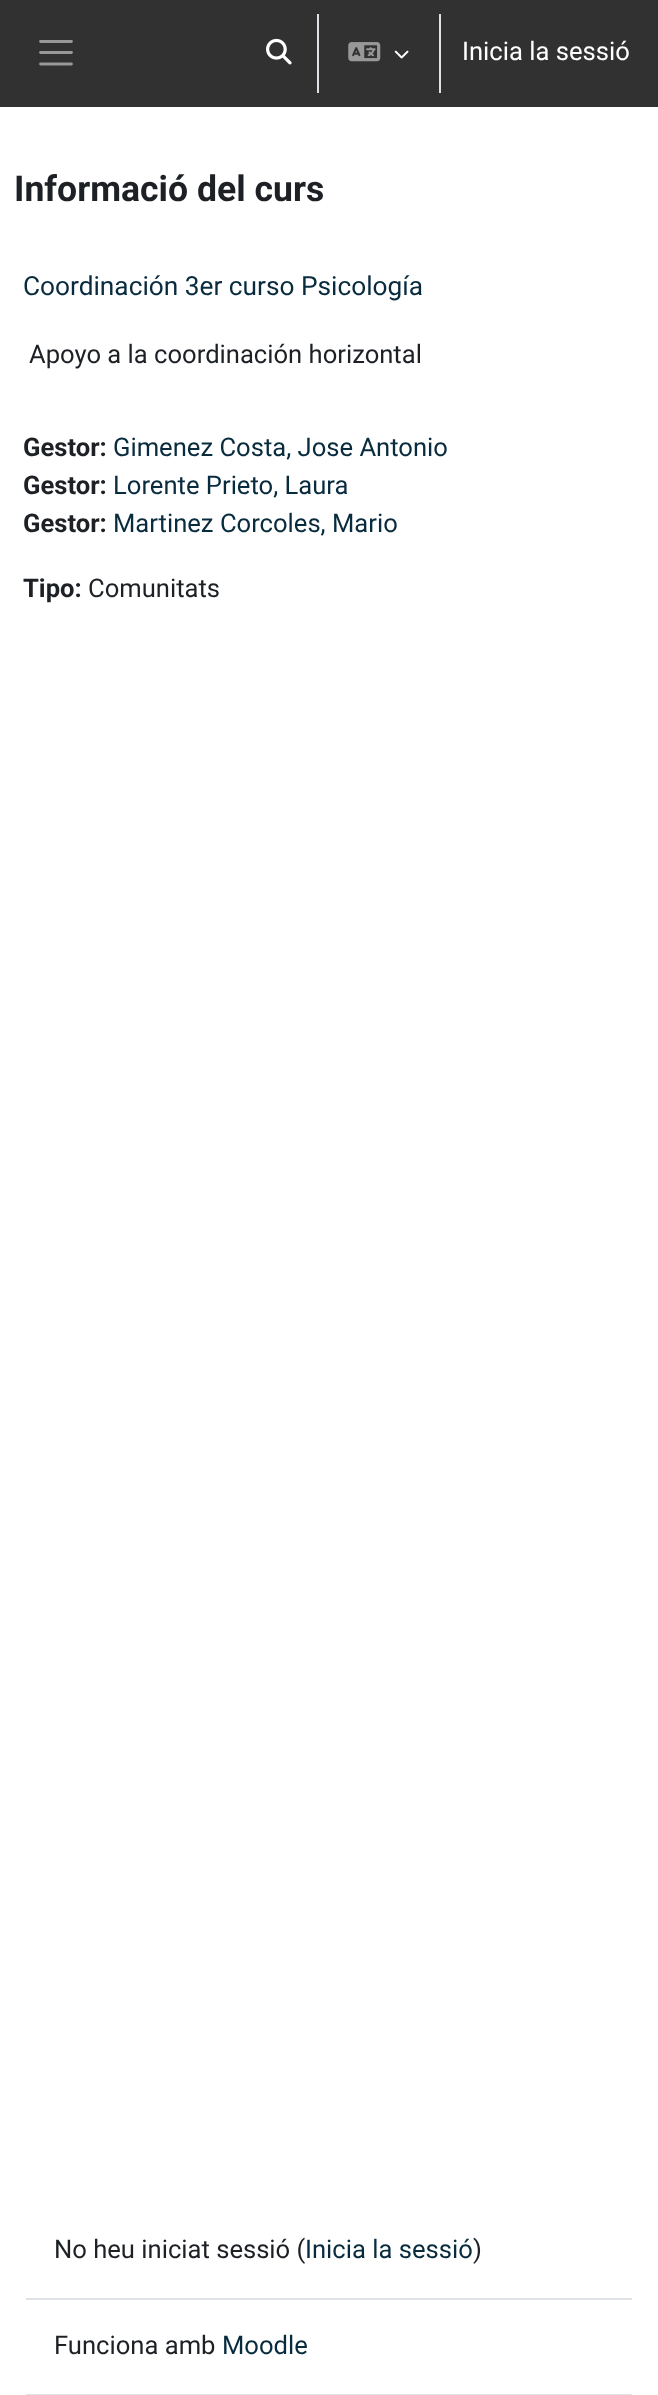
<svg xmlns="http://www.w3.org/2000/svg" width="658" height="2395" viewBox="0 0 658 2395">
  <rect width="100%" height="100%" fill="rgb(255,255,255)"/>
  <rect x="0" y="0" width="658" height="107" fill="rgb(49,49,49)"/>
  <path d="M40.5 41.5H71.5M40.5 52.5H71.5M40.5 64H71.5" fill="none" stroke="rgb(152,152,152)" stroke-width="2.8" stroke-linecap="round"/>
  <image x="266" y="38" width="26" height="27" href="pic1.png"/>
  <rect x="317" y="14" width="2" height="79" fill="rgb(222,226,230)"/>
  <image x="348" y="42" width="33" height="20" href="pic2.png"/>
  <image x="394" y="50" width="15" height="9" href="pic3.png"/>
  <rect x="439" y="14" width="2" height="79" fill="rgb(222,226,230)"/>
  <text x="462" y="60" font-family="Roboto" font-size="25.6" fill="rgb(255,255,255)">Inicia la sessió</text>
  <text x="14" y="201" font-family="Roboto" font-size="35.6" font-weight="bold" fill="rgb(29,33,37)">Informació del curs</text>
  <text x="23" y="295" font-family="Roboto" font-size="26.25" fill="rgb(8,43,62)">Coordinación 3er curso Psicología</text>
  <text x="29" y="363" font-family="Roboto" font-size="25.6" fill="rgb(29,33,37)">Apoyo a la coordinación horizontal</text>
  <text x="23" y="456" font-family="Roboto" font-size="25.6" font-weight="bold" fill="rgb(29,33,37)">Gestor:</text>
  <text x="113" y="456" font-family="Roboto" font-size="25.6" fill="rgb(8,43,62)">Gimenez Costa, Jose Antonio</text>
  <text x="23" y="494" font-family="Roboto" font-size="25.6" font-weight="bold" fill="rgb(29,33,37)">Gestor:</text>
  <text x="113" y="494" font-family="Roboto" font-size="25.6" fill="rgb(8,43,62)">Lorente Prieto, Laura</text>
  <text x="23" y="532" font-family="Roboto" font-size="25.6" font-weight="bold" fill="rgb(29,33,37)">Gestor:</text>
  <text x="113" y="532" font-family="Roboto" font-size="25.6" fill="rgb(8,43,62)">Martinez Corcoles, Mario</text>
  <text x="23" y="597" font-family="Roboto" font-size="25.6" font-weight="bold" fill="rgb(29,33,37)">Tipo:</text>
  <text x="88" y="597" font-family="Roboto" font-size="25.6" fill="rgb(29,33,37)">Comunitats</text>
  <rect x="26" y="2298" width="606" height="2" fill="rgb(222,226,230)"/>
  <text x="54" y="2258" font-family="Roboto" font-size="25.6" fill="rgb(29,33,37)">No heu iniciat sessió (</text>
  <text x="305" y="2258" font-family="Roboto" font-size="25.6" fill="rgb(8,43,62)">Inicia la sessió</text>
  <text x="473" y="2258" font-family="Roboto" font-size="25.6" fill="rgb(29,33,37)">)</text>
  <rect x="26" y="2394" width="606" height="1" fill="rgb(222,226,230)"/>
  <text x="54" y="2354" font-family="Roboto" font-size="25.6" fill="rgb(29,33,37)">Funciona amb</text>
  <text x="222" y="2354" font-family="Roboto" font-size="25.6" fill="rgb(8,43,62)">Moodle</text>
</svg>
